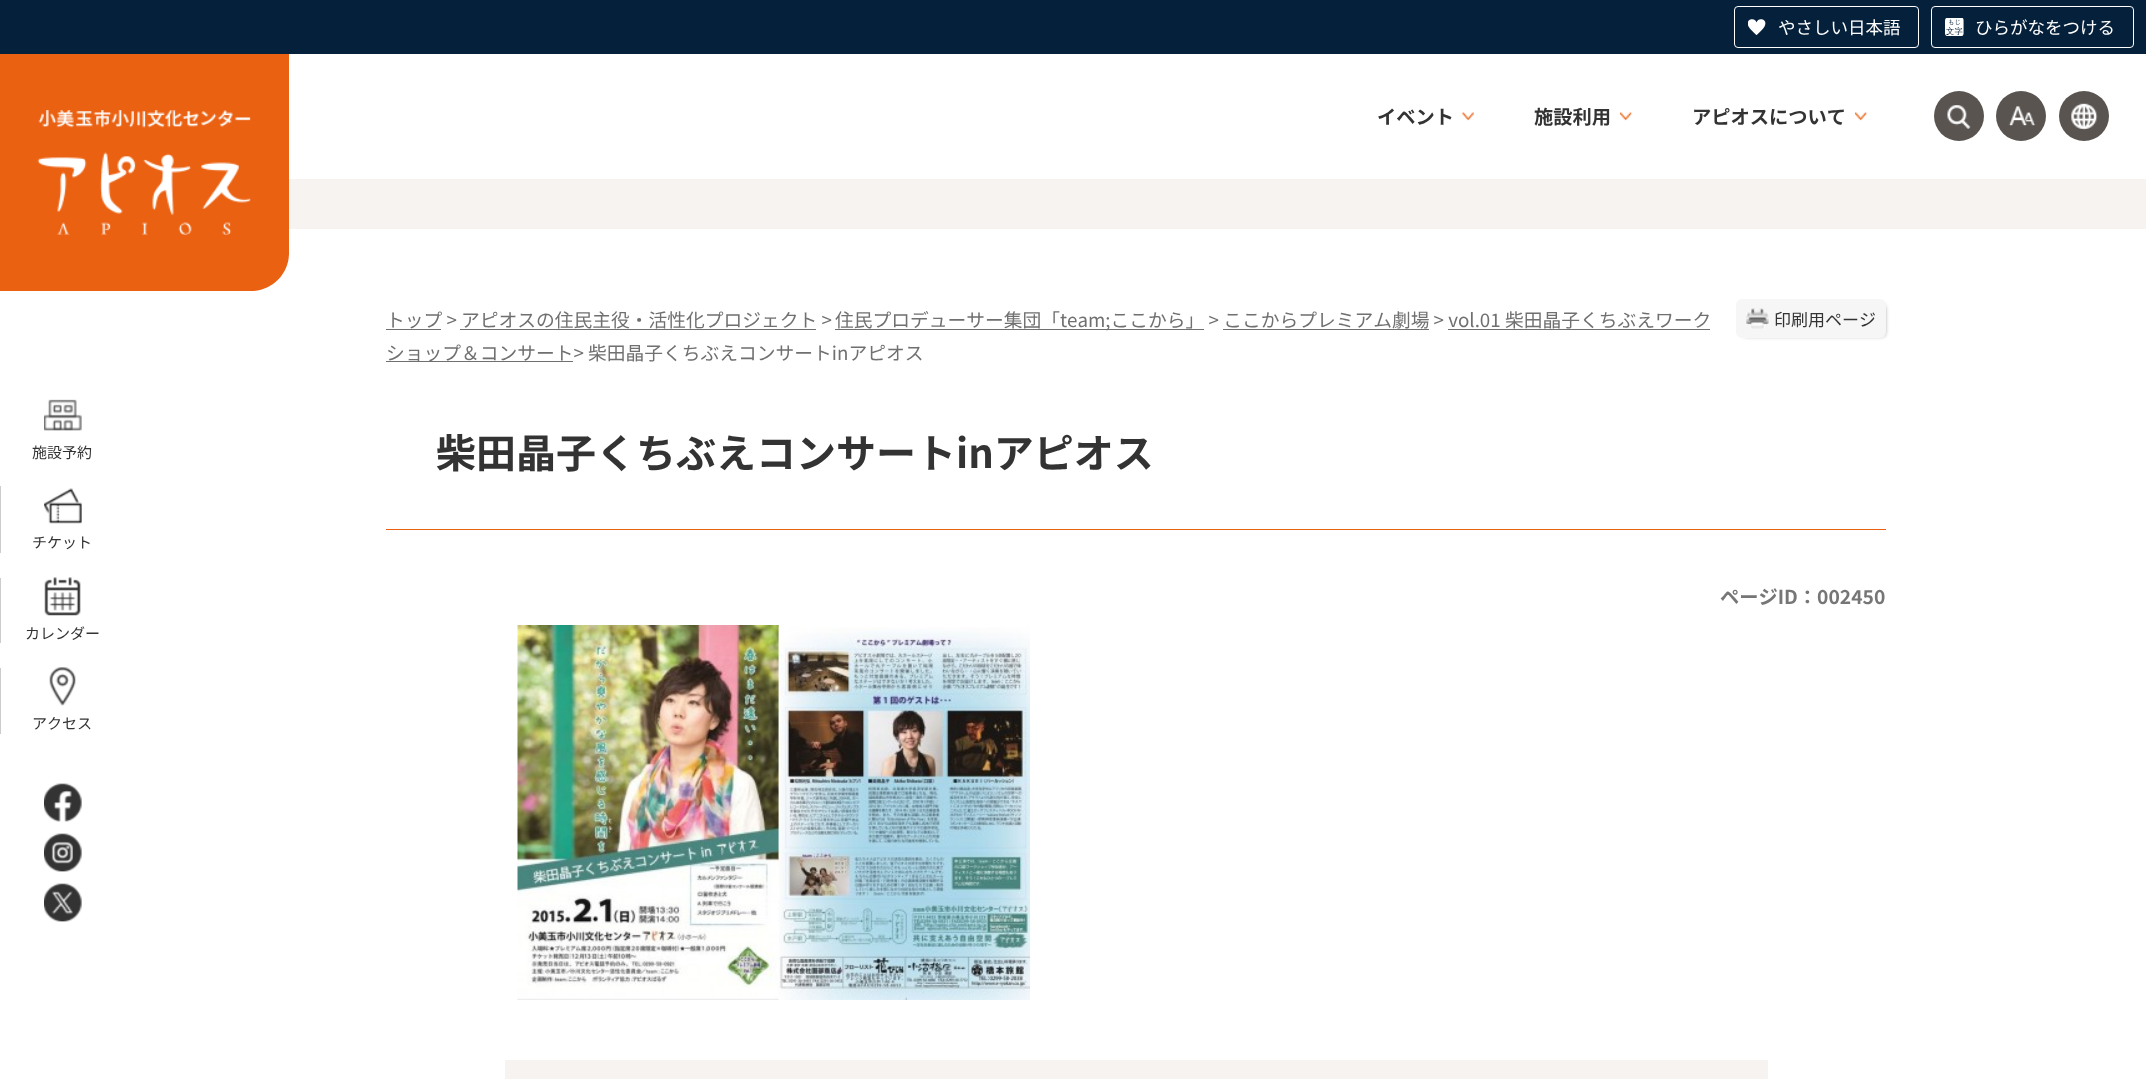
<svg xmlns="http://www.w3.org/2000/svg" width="2146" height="1079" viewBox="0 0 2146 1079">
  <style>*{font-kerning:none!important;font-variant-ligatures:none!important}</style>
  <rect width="100%" height="100%" fill="rgb(255,255,255)"/>
  <rect x="0" y="0" width="2146" height="54" fill="rgb(5,32,58)"/>
  <image x="1748" y="19" width="18" height="16" href="pic1.png"/>
  <rect x="1734.5" y="6.5" width="184" height="41" rx="3.5" fill="none" stroke="rgb(255,255,255)"/>
  <text x="1778" y="34" font-family="Noto Sans JP" font-size="17.5" fill="rgb(255,255,255)">やさしい日本語</text>
  <image x="1945" y="18" width="19" height="18" href="pic2.png"/>
  <rect x="1931.5" y="6.5" width="202" height="41" rx="3.5" fill="none" stroke="rgb(255,255,255)"/>
  <text x="1975" y="34" font-family="Noto Sans JP" font-size="17.5" fill="rgb(255,255,255)">ひらがなをつける</text>
  <rect x="289" y="179" width="1857" height="50" fill="rgb(247,243,240)"/>
  <path d="M0 54H289V253C289 274 272 291 251 291H0Z" fill="rgb(235,97,18)"/>
  <image x="37" y="110" width="214" height="125" href="pic3.png"/>
  <text x="1377" y="124" font-family="Noto Sans JP" font-size="19.25" font-weight="bold" fill="rgb(51,51,51)">イベント</text>
  <image x="1462" y="112" width="12" height="9" href="pic4.png"/>
  <text x="1534" y="124" font-family="Noto Sans JP" font-size="19.25" font-weight="bold" fill="rgb(51,51,51)">施設利用</text>
  <image x="1620" y="112" width="12" height="9" href="pic5.png"/>
  <text x="1692" y="124" font-family="Noto Sans JP" font-size="19.25" font-weight="bold" fill="rgb(51,51,51)">アピオスについて</text>
  <image x="1855" y="112" width="12" height="9" href="pic6.png"/>
  <circle cx="1959" cy="116" r="25" fill="rgb(89,84,80)"/>
  <image x="1947" y="105" width="24" height="24" href="pic7.png"/>
  <circle cx="2021" cy="116" r="25" fill="rgb(89,84,80)"/>
  <image x="2008" y="106" width="28" height="20" href="pic8.png"/>
  <circle cx="2084" cy="116" r="25" fill="rgb(89,84,80)"/>
  <image x="2071" y="103" width="27" height="27" href="pic9.png"/>
  <image x="44" y="399" width="38" height="32" href="pic10.png"/>
  <text x="32" y="458" font-family="Noto Sans JP" font-size="15" fill="rgb(51,51,51)">施設予約</text>
  <rect x="0" y="486" width="1" height="67" fill="rgb(204,204,204)"/>
  <image x="44" y="488" width="38" height="36" href="pic11.png"/>
  <text x="32" y="548" font-family="Noto Sans JP" font-size="15" fill="rgb(51,51,51)">チケット</text>
  <rect x="0" y="578" width="1" height="65" fill="rgb(204,204,204)"/>
  <image x="44" y="577" width="37" height="39" href="pic12.png"/>
  <text x="25" y="639" font-family="Noto Sans JP" font-size="15" fill="rgb(51,51,51)">カレンダー</text>
  <rect x="0" y="668" width="1" height="66" fill="rgb(204,204,204)"/>
  <image x="49" y="667" width="27" height="39" href="pic13.png"/>
  <text x="32" y="729" font-family="Noto Sans JP" font-size="15" fill="rgb(51,51,51)">アクセス</text>
  <image x="44" y="783" width="38" height="39" href="pic14.png"/>
  <image x="44" y="833" width="38" height="39" href="pic15.png"/>
  <image x="44" y="883" width="38" height="39" href="pic16.png"/>
  <text x="386" y="327" font-family="Noto Sans JP" font-size="18.75" fill="rgb(112,112,112)">トップ &gt; アピオスの住民主役・活性化プロジェクト &gt;</text>
  <rect x="386" y="329" width="55" height="1" fill="rgb(112,112,112)"/>
  <rect x="835" y="329" width="369" height="1" fill="rgb(112,112,112)"/>
  <text x="835" y="327" font-family="Noto Sans JP" font-size="18.75" fill="rgb(112,112,112)">住民プロデューサー集団「team;ここから」 &gt; ここからプレミアム劇場 &gt; vol.01 柴田晶子くちぶえワーク</text>
  <rect x="460" y="329" width="356" height="1" fill="rgb(112,112,112)"/>
  <rect x="1223" y="329" width="206" height="1" fill="rgb(112,112,112)"/>
  <rect x="386" y="361" width="187" height="1" fill="rgb(112,112,112)"/>
  <text x="386" y="360" font-family="Noto Sans JP" font-size="18.75" fill="rgb(112,112,112)">ショップ＆コンサート&gt; 柴田晶子くちぶえコンサートinアピオス</text>
  <rect x="1448" y="329" width="262" height="1" fill="rgb(112,112,112)"/>
  <rect x="1744" y="306" width="140" height="29" rx="1" fill="rgba(0,0,0,0.75)" filter="blur(2.5px)"/>
  <rect x="1736" y="299" width="150" height="39" rx="6" fill="rgb(246,246,246)"/>
  <image x="1746" y="308" width="23" height="21" href="pic17.png"/>
  <text x="1774" y="326" font-family="Noto Sans JP" font-size="17" fill="rgb(51,51,51)">印刷用ページ</text>
  <rect x="386" y="529" width="1500" height="1" fill="rgb(235,97,18)"/>
  <text x="436" y="468" font-family="Noto Sans JP" font-size="40" font-weight="bold" fill="rgb(51,51,51)">柴田晶子くちぶえコンサートinアピオス</text>
  <text x="1720" y="604" font-family="Noto Sans JP" font-size="19.25" font-weight="bold" fill="rgb(118,118,118)">ページID：002450</text>
  <image x="517" y="625" width="262" height="375" href="pic18.png"/>
  <image x="778" y="627" width="252" height="373" href="pic19.png"/>
  <rect x="505" y="1060" width="1263" height="19" fill="rgb(247,243,240)"/>
</svg>
